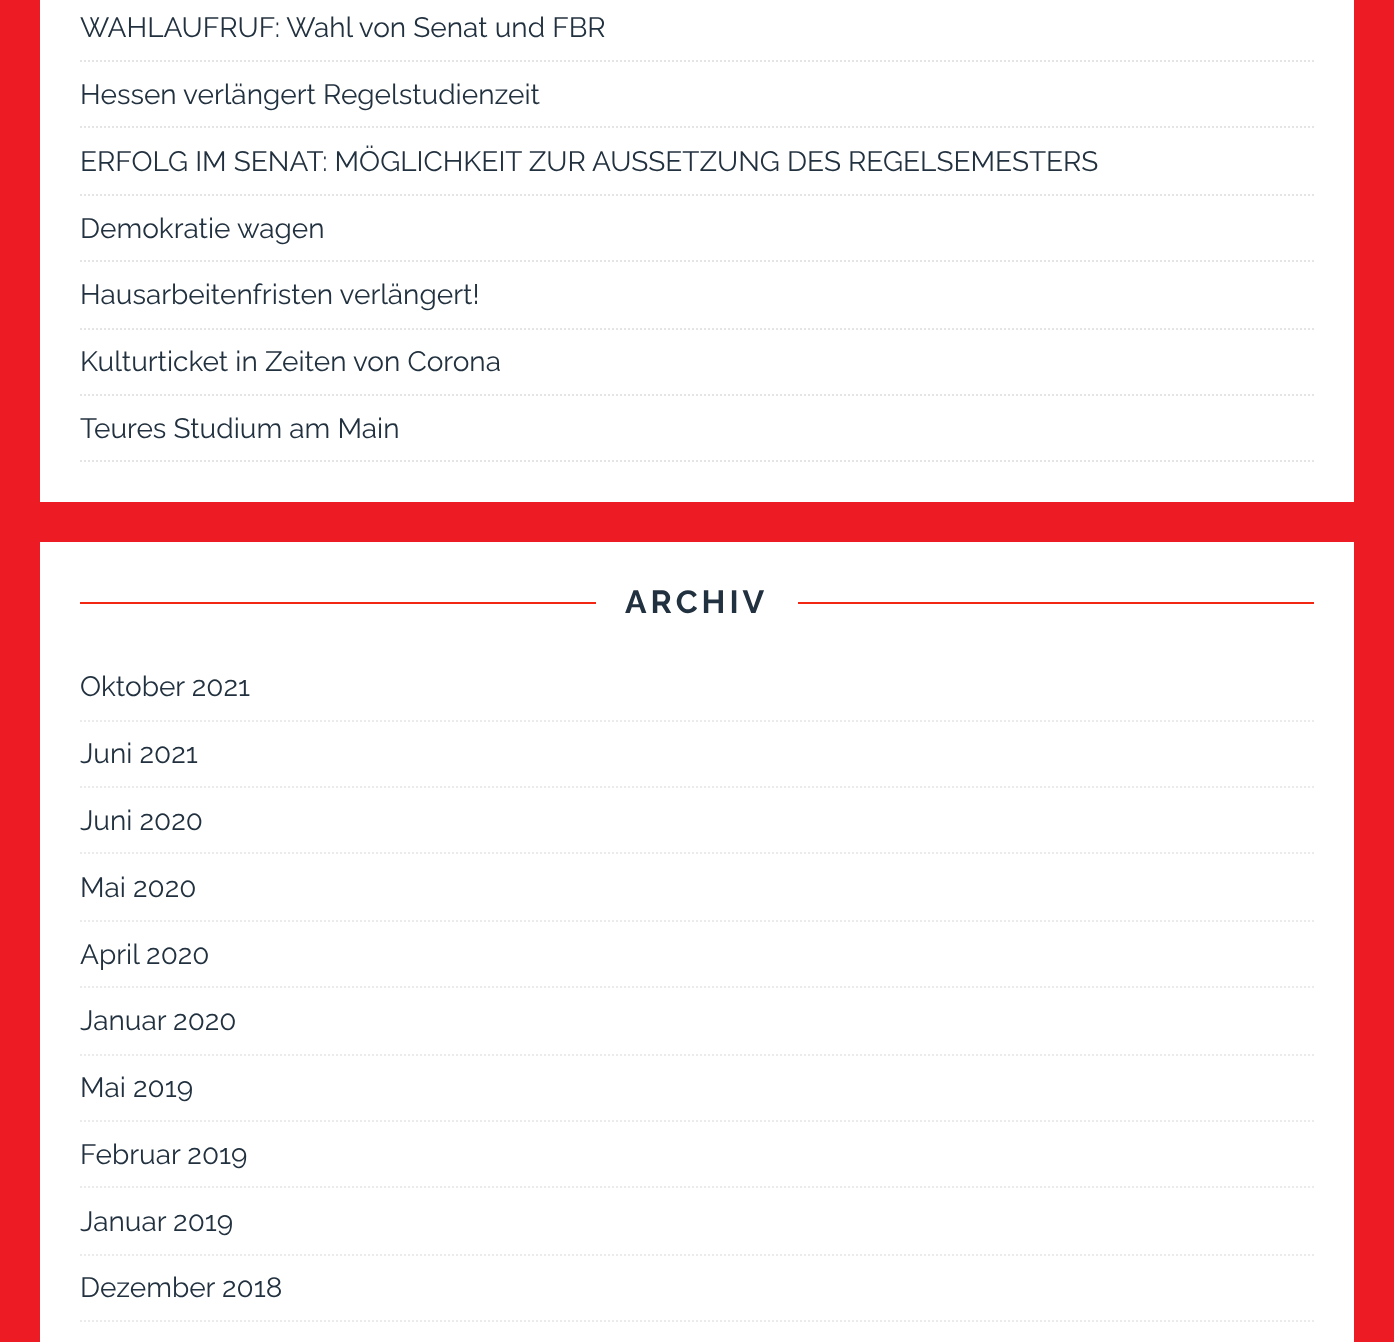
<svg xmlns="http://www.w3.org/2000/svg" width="1394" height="1342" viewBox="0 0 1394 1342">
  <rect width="100%" height="100%" fill="rgb(237,28,36)"/>
  <rect x="40" y="0" width="1314" height="502" fill="rgb(255,255,255)"/>
  <path d="M80 61H1314" fill="none" stroke="rgb(229,229,229)" stroke-width="2" stroke-dasharray="2 2"/>
  <text x="80" y="37" font-family="Raleway" font-size="28" fill="rgb(34,49,63)">WAHLAUFRUF: Wahl von Senat und FBR</text>
  <path d="M80 127H1314" fill="none" stroke="rgb(229,229,229)" stroke-width="2" stroke-dasharray="2 2"/>
  <text x="80" y="104" font-family="Raleway" font-size="28" fill="rgb(34,49,63)">Hessen verlängert Regelstudienzeit</text>
  <path d="M80 195H1314" fill="none" stroke="rgb(229,229,229)" stroke-width="2" stroke-dasharray="2 2"/>
  <text x="80" y="171" font-family="Raleway" font-size="28" fill="rgb(34,49,63)">ERFOLG IM SENAT: MÖGLICHKEIT ZUR AUSSETZUNG DES REGELSEMESTERS</text>
  <path d="M80 261H1314" fill="none" stroke="rgb(229,229,229)" stroke-width="2" stroke-dasharray="2 2"/>
  <text x="80" y="238" font-family="Raleway" font-size="28" fill="rgb(34,49,63)">Demokratie wagen</text>
  <path d="M80 329H1314" fill="none" stroke="rgb(229,229,229)" stroke-width="2" stroke-dasharray="2 2"/>
  <text x="80" y="304" font-family="Raleway" font-size="28" fill="rgb(34,49,63)">Hausarbeitenfristen verlängert!</text>
  <path d="M80 395H1314" fill="none" stroke="rgb(229,229,229)" stroke-width="2" stroke-dasharray="2 2"/>
  <text x="80" y="371" font-family="Raleway" font-size="28" fill="rgb(34,49,63)">Kulturticket in Zeiten von Corona</text>
  <path d="M80 461H1314" fill="none" stroke="rgb(229,229,229)" stroke-width="2" stroke-dasharray="2 2"/>
  <text x="80" y="438" font-family="Raleway" font-size="28" fill="rgb(34,49,63)">Teures Studium am Main</text>
  <rect x="40" y="542" width="1314" height="800" fill="rgb(255,255,255)"/>
  <rect x="80" y="602" width="516" height="2" fill="rgb(242,38,18)"/>
  <text x="625" y="613" font-family="Raleway" font-size="32" font-weight="bold" letter-spacing="4" fill="rgb(34,49,63)">ARCHIV</text>
  <rect x="798" y="602" width="516" height="2" fill="rgb(242,38,18)"/>
  <path d="M80 721H1314" fill="none" stroke="rgb(235,235,235)" stroke-width="2" stroke-dasharray="2 2"/>
  <text x="80" y="696" font-family="Raleway" font-size="28" fill="rgb(34,49,63)">Oktober 2021</text>
  <path d="M80 787H1314" fill="none" stroke="rgb(235,235,235)" stroke-width="2" stroke-dasharray="2 2"/>
  <text x="80" y="763" font-family="Raleway" font-size="28" fill="rgb(34,49,63)">Juni 2021</text>
  <path d="M80 853H1314" fill="none" stroke="rgb(235,235,235)" stroke-width="2" stroke-dasharray="2 2"/>
  <text x="80" y="830" font-family="Raleway" font-size="28" fill="rgb(34,49,63)">Juni 2020</text>
  <path d="M80 921H1314" fill="none" stroke="rgb(235,235,235)" stroke-width="2" stroke-dasharray="2 2"/>
  <text x="80" y="897" font-family="Raleway" font-size="28" fill="rgb(34,49,63)">Mai 2020</text>
  <path d="M80 987H1314" fill="none" stroke="rgb(235,235,235)" stroke-width="2" stroke-dasharray="2 2"/>
  <text x="80" y="964" font-family="Raleway" font-size="28" fill="rgb(34,49,63)">April 2020</text>
  <path d="M80 1055H1314" fill="none" stroke="rgb(235,235,235)" stroke-width="2" stroke-dasharray="2 2"/>
  <text x="80" y="1030" font-family="Raleway" font-size="28" fill="rgb(34,49,63)">Januar 2020</text>
  <path d="M80 1121H1314" fill="none" stroke="rgb(235,235,235)" stroke-width="2" stroke-dasharray="2 2"/>
  <text x="80" y="1097" font-family="Raleway" font-size="28" fill="rgb(34,49,63)">Mai 2019</text>
  <path d="M80 1187H1314" fill="none" stroke="rgb(235,235,235)" stroke-width="2" stroke-dasharray="2 2"/>
  <text x="80" y="1164" font-family="Raleway" font-size="28" fill="rgb(34,49,63)">Februar 2019</text>
  <path d="M80 1255H1314" fill="none" stroke="rgb(235,235,235)" stroke-width="2" stroke-dasharray="2 2"/>
  <text x="80" y="1231" font-family="Raleway" font-size="28" fill="rgb(34,49,63)">Januar 2019</text>
  <path d="M80 1321H1314" fill="none" stroke="rgb(235,235,235)" stroke-width="2" stroke-dasharray="2 2"/>
  <text x="80" y="1297" font-family="Raleway" font-size="28" fill="rgb(34,49,63)">Dezember 2018</text>
</svg>
